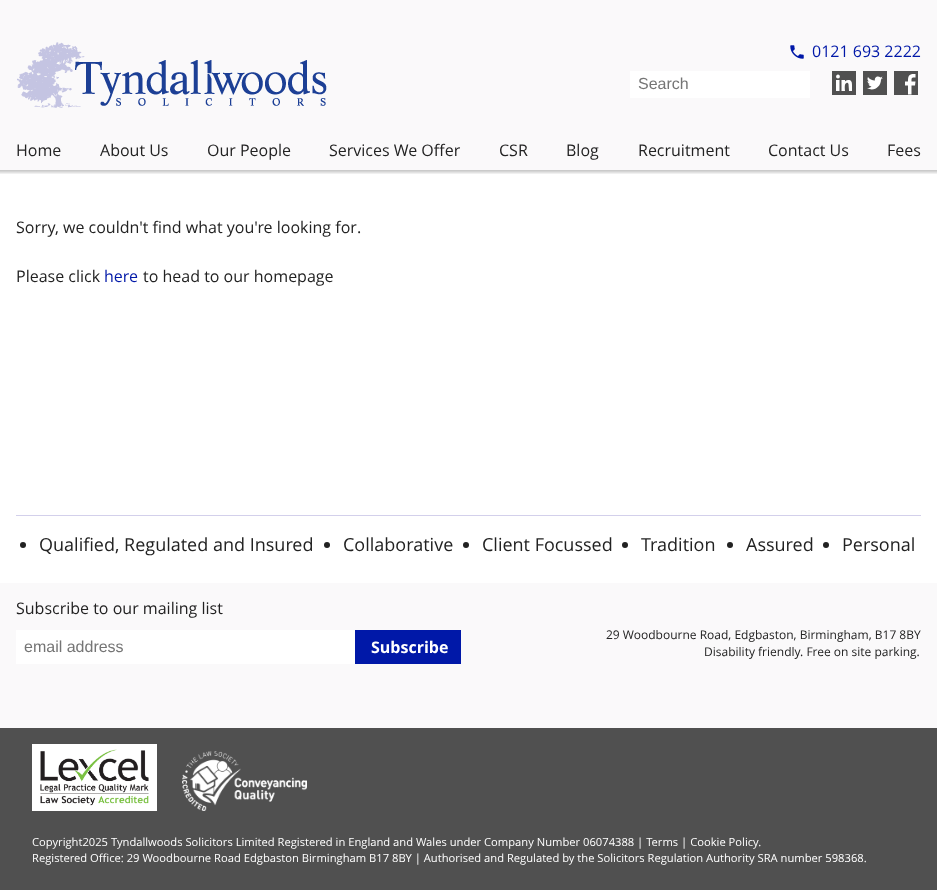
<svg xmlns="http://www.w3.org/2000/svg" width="937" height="890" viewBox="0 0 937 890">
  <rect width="100%" height="100%" fill="rgb(255,255,255)"/>
  <rect x="0" y="173" width="937" height="1" fill="rgb(240,240,240)"/>
  <rect x="0" y="172" width="937" height="1" fill="rgb(226,226,226)"/>
  <rect x="0" y="171" width="937" height="1" fill="rgb(213,213,213)"/>
  <rect x="0" y="170" width="937" height="1" fill="rgb(202,202,202)"/>
  <rect x="0" y="0" width="937" height="170" fill="rgb(250,249,250)"/>
  <image x="17" y="42" width="310" height="66" href="pic1.png"/>
  <image x="790" y="45" width="14" height="14" href="pic2.png"/>
  <text x="812" y="57" font-family="Open Sans" font-size="16" fill="rgb(0,24,168)">0121 693 2222</text>
  <rect x="630" y="71" width="180" height="27" fill="rgb(255,255,255)"/>
  <text x="638" y="89" font-family="Liberation Sans" font-size="16" fill="rgb(117,117,117)">Search</text>
  <rect x="836" y="74" width="16" height="17" fill="rgb(255,255,255)"/>
  <path d="M832 71V95H856V71ZM839.5 91H836V80H839.5ZM838 78.5C835.5 78.5 835.5 74.5 838 74.5C840.5 74.5 840.5 78.5 838 78.5ZM852 91H849L848.5 84C848 83 847.5 82.5 846.5 83C844 83.5 845 89.5 845 91H841.5V80H845V81.5C845.5 81 846.5 80 848 80C851.5 80 852 82 852 85Z" fill="rgb(80,80,80)"/>
  <rect x="867" y="76" width="16" height="14" fill="rgb(255,255,255)"/>
  <path d="M863 71V95H887V71ZM881 79.5C881 87 873.5 92 867 88C868.5 88 870.5 87.5 871.5 86.5C870.5 86.5 869 85.5 868.5 84.5L870 84C868.5 84 867.5 82.5 867.5 81L869 81.5C867.5 80.5 867 78.5 868 77C869.5 79 872 80.5 875 80.5C874 77 878 75 880.5 77.5L882.5 76.5C882 77.5 881.5 78 881 78.5L883 78Z" fill="rgb(80,80,80)"/>
  <rect x="905" y="73" width="11" height="22" fill="rgb(255,255,255)"/>
  <path d="M894 71V95H918V71ZM915.5 77.5C911.5 77.5 911.5 77.5 911.5 81.5H915.5L915 85.5H911.5V94.5H908V85.5H905V81.5H908C908 75.5 909 73.5 915.5 74Z" fill="rgb(80,80,80)"/>
  <g font-family="Open Sans" font-size="16" fill="rgb(34,34,34)">
    <text x="16" y="156">Home</text>
    <text x="100" y="156">About Us</text>
    <text x="207" y="156">Our People</text>
    <text x="329" y="156">Services We Offer</text>
    <text x="499" y="156">CSR</text>
    <text x="566" y="156">Blog</text>
    <text x="638" y="156">Recruitment</text>
    <text x="768" y="156">Contact Us</text>
    <text x="887" y="156">Fees</text>
    <text x="16" y="233">Sorry, we couldn't find what you're looking for.</text>
    <text x="16" y="282">Please click</text>
  </g>
  <text x="104" y="282" font-family="Open Sans" font-size="16" fill="rgb(0,24,168)">here</text>
  <text x="143" y="282" font-family="Open Sans" font-size="16" fill="rgb(34,34,34)">to head to our homepage</text>
  <rect x="16" y="515" width="905" height="1" fill="rgb(211,208,235)"/>
  <circle cx="23" cy="545" r="3" fill="rgb(34,34,34)"/>
  <text x="39" y="551" font-family="Open Sans" font-size="18" fill="rgb(34,34,34)">Qualified, Regulated and Insured</text>
  <circle cx="327" cy="545" r="3" fill="rgb(34,34,34)"/>
  <text x="343" y="551" font-family="Open Sans" font-size="18" fill="rgb(34,34,34)">Collaborative</text>
  <circle cx="466" cy="545" r="3" fill="rgb(34,34,34)"/>
  <text x="482" y="551" font-family="Open Sans" font-size="18" fill="rgb(34,34,34)">Client Focussed</text>
  <circle cx="625" cy="545" r="3" fill="rgb(34,34,34)"/>
  <text x="641" y="551" font-family="Open Sans" font-size="18" fill="rgb(34,34,34)">Tradition</text>
  <circle cx="730" cy="545" r="3" fill="rgb(34,34,34)"/>
  <text x="746" y="551" font-family="Open Sans" font-size="18" fill="rgb(34,34,34)">Assured</text>
  <circle cx="826" cy="545" r="3" fill="rgb(34,34,34)"/>
  <text x="842" y="551" font-family="Open Sans" font-size="18" fill="rgb(34,34,34)">Personal</text>
  <rect x="0" y="583" width="937" height="145" fill="rgb(250,249,250)"/>
  <text x="16" y="614" font-family="Open Sans" font-size="16" fill="rgb(34,34,34)">Subscribe to our mailing list</text>
  <rect x="16" y="630" width="339" height="34" fill="rgb(255,255,255)"/>
  <text x="24" y="652" font-family="Liberation Sans" font-size="16" fill="rgb(117,117,117)">email address</text>
  <rect x="355" y="630" width="106" height="34" fill="rgb(0,24,168)"/>
  <text x="371" y="653" font-family="Open Sans" font-size="16" font-weight="bold" fill="rgb(255,255,255)">Subscribe</text>
  <g font-family="Open Sans" font-size="12" fill="rgb(34,34,34)">
    <text x="606" y="639">29 Woodbourne Road, Edgbaston, Birmingham, B17 8BY</text>
    <text x="704" y="656">Disability friendly. Free on site parking.</text>
  </g>
  <rect x="0" y="728" width="937" height="162" fill="rgb(80,80,80)"/>
  <image x="32" y="744" width="125" height="67" href="pic3.png"/>
  <image x="182" y="751" width="125" height="60" href="pic4.png"/>
  <g font-family="Open Sans" font-size="11.2" fill="rgb(255,255,255)">
    <text>
      <tspan x="32" y="846">Copyright2025 Tyndallwoods Solicitors Limited Registered in England and Wales under Company Number 06074388 | Terms | Cookie Policy.</tspan>
      <tspan x="32" y="862">Registered Office: 29 Woodbourne Road Edgbaston Birmingham B17 8BY | Authorised and Regulated by the Solicitors Regulation Authority SRA number 598368.</tspan>
    </text>
  </g>
</svg>
